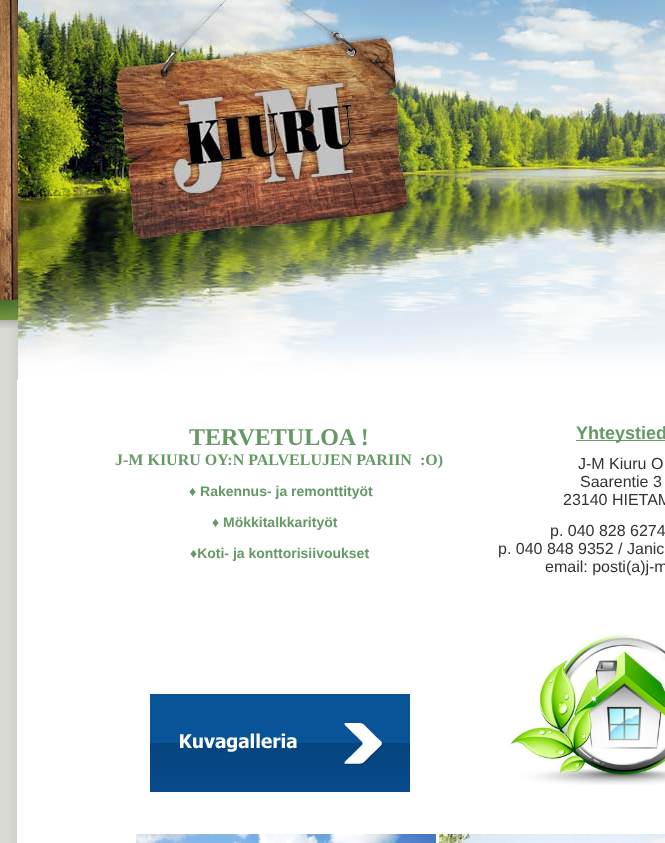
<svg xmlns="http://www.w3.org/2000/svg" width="665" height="843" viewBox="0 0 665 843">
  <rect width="100%" height="100%" fill="rgb(217,218,212)"/>
  <image x="0" y="0" width="17" height="328" href="pic1.png"/>
  <image x="7" y="0" width="10" height="380" href="pic2.png"/>
  <image x="17" y="0" width="648" height="380" href="pic3.png"/>
  <image x="10" y="380" width="655" height="463" href="pic4.png"/>
  <text x="189" y="445" font-family="Liberation Serif" font-size="24" font-weight="bold" fill="rgb(102,153,102)">TERVETULOA !</text>
  <text x="115" y="465" font-family="Liberation Serif" font-size="16" font-weight="bold" fill="rgb(102,153,102)" xml:space="preserve">J-M KIURU OY:N PALVELUJEN PARIIN  :O)</text>
  <g font-family="Liberation Sans" font-size="14" font-weight="bold" fill="rgb(102,153,102)">
    <text x="189" y="496">♦ Rakennus- ja remonttityöt</text>
    <text x="212" y="527">♦ Mökkitalkkarityöt</text>
    <text x="190" y="558">♦Koti- ja konttorisiivoukset</text>
  </g>
  <rect x="576" y="440" width="89" height="1" fill="rgb(102,153,102)"/>
  <text x="576" y="439" font-family="Liberation Sans" font-size="18" font-weight="bold" fill="rgb(102,153,102)">Yhteystied</text>
  <g font-family="Liberation Sans" font-size="16" fill="rgb(51,51,51)">
    <text x="578" y="469">J-M Kiuru O</text>
    <text x="580" y="487">Saarentie 3</text>
    <text x="563" y="505">23140 HIETAM</text>
    <text x="550" y="536">p. 040 828 6274</text>
    <text x="498" y="554">p. 040 848 9352 / Janic</text>
    <text x="545" y="572">email: posti(a)j-m</text>
  </g>
  <image x="150" y="694" width="260" height="98" href="pic5.png"/>
  <image x="508" y="633" width="157" height="152" href="pic6.png"/>
  <image x="136" y="834" width="300" height="9" href="pic7.png"/>
  <image x="439" y="834" width="226" height="9" href="pic8.png"/>
</svg>
